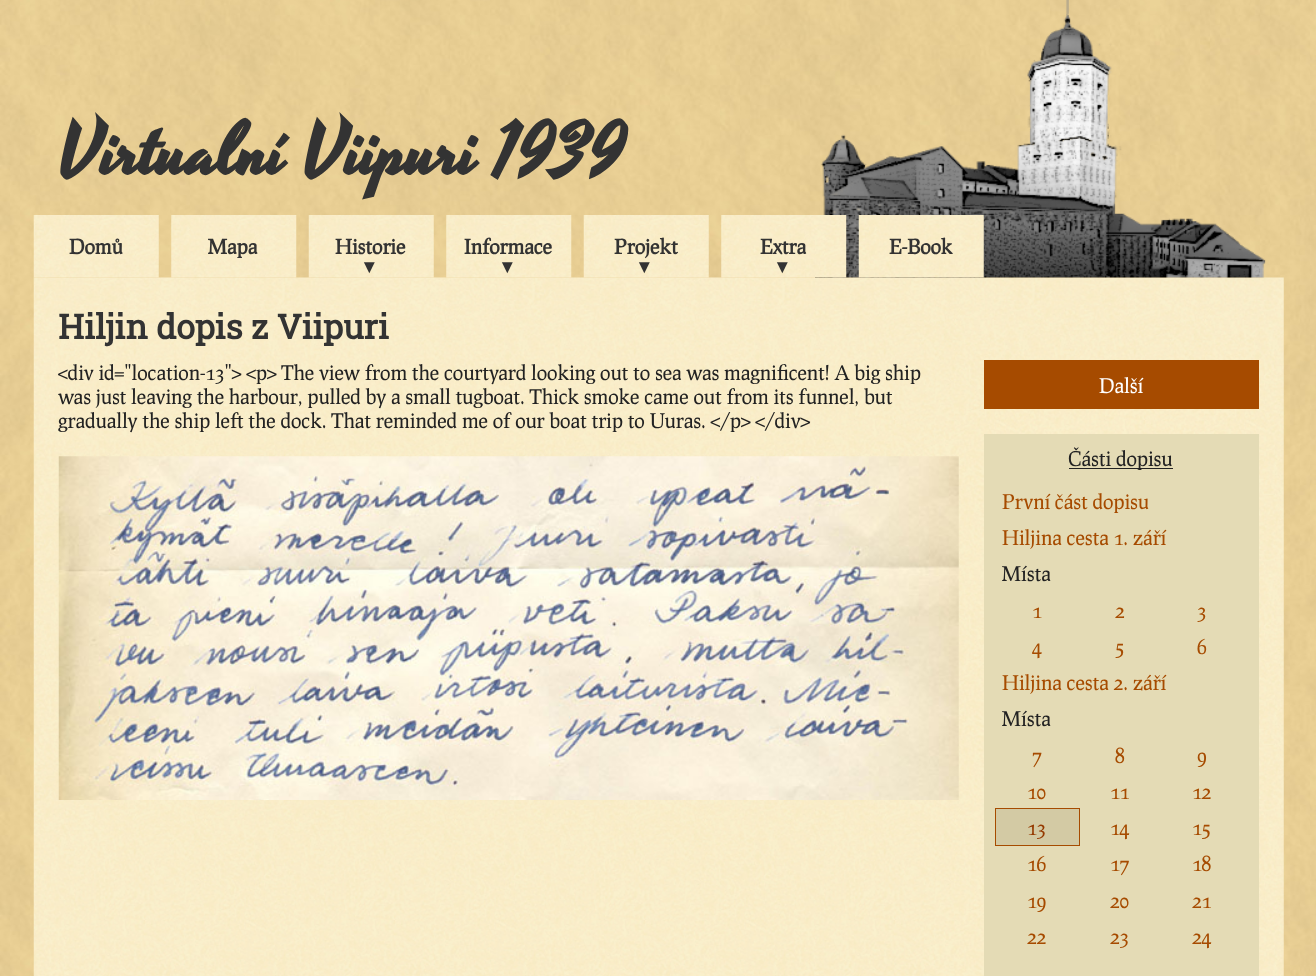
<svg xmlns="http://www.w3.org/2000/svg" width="1316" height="976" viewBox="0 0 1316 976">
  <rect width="100%" height="100%" fill="rgb(255,255,255)"/>
  <image x="0" y="0" width="1316" height="976" href="pic1.png"/>
  <image x="33" y="277" width="1251" height="699" href="pic10.png"/>
  <image x="815" y="0" width="451" height="278" href="pic2.png"/>
  <text x="58" y="173" font-family="Yesteryear" font-size="75" font-weight="bold" fill="rgb(51,51,51)">Virtualní Viipuri 1939</text>
  <image x="33" y="215" width="126" height="63" href="pic3.png"/>
  <text x="69" y="254" font-family="Prociono" font-size="20" font-weight="bold" fill="rgb(51,51,51)">Domů</text>
  <image x="171" y="215" width="126" height="63" href="pic4.png"/>
  <text x="208" y="254" font-family="Prociono" font-size="20" font-weight="bold" fill="rgb(51,51,51)">Mapa</text>
  <image x="308" y="215" width="126" height="63" href="pic5.png"/>
  <text x="335" y="254" font-family="Prociono" font-size="20" font-weight="bold" fill="rgb(51,51,51)">Historie</text>
  <text x="364" y="273" font-family="DejaVu Sans" font-size="20" font-weight="bold" fill="rgb(51,51,51)">▾</text>
  <image x="446" y="215" width="126" height="63" href="pic6.png"/>
  <text x="464" y="254" font-family="Prociono" font-size="20" font-weight="bold" fill="rgb(51,51,51)">Informace</text>
  <text x="502" y="273" font-family="DejaVu Sans" font-size="20" font-weight="bold" fill="rgb(51,51,51)">▾</text>
  <image x="583" y="215" width="126" height="63" href="pic7.png"/>
  <text x="614" y="254" font-family="Prociono" font-size="20" font-weight="bold" fill="rgb(51,51,51)">Projekt</text>
  <text x="639" y="273" font-family="DejaVu Sans" font-size="20" font-weight="bold" fill="rgb(51,51,51)">▾</text>
  <image x="721" y="215" width="126" height="63" href="pic8.png"/>
  <text x="760" y="254" font-family="Prociono" font-size="20" font-weight="bold" fill="rgb(51,51,51)">Extra</text>
  <text x="777" y="273" font-family="DejaVu Sans" font-size="20" font-weight="bold" fill="rgb(51,51,51)">▾</text>
  <image x="858" y="215" width="126" height="63" href="pic9.png"/>
  <text x="889" y="254" font-family="Prociono" font-size="20" font-weight="bold" fill="rgb(51,51,51)">E-Book</text>
  <text x="58" y="339" font-family="Roboto Slab" font-size="34" font-weight="bold" fill="rgb(51,51,51)">Hiljin dopis z Viipuri</text>
  <g font-family="Prociono" font-size="20" fill="rgb(34,34,34)">
    <text>
      <tspan x="58" y="380">&lt;div id="location-13"&gt; &lt;p&gt; The view from the courtyard looking out to sea was magnificent! A big ship</tspan>
      <tspan x="58" y="404">was just leaving the harbour, pulled by a small tugboat. Thick smoke came out from its funnel, but</tspan>
      <tspan x="58" y="428">gradually the ship left the dock. That reminded me of our boat trip to Uuras. &lt;/p&gt; &lt;/div&gt;</tspan>
    </text>
  </g>
  <image x="58" y="456" width="901" height="344" href="pic11.png"/>
  <rect x="984" y="360" width="275" height="49" fill="rgb(166,75,0)"/>
  <text x="1099" y="393" font-family="Prociono" font-size="20" fill="rgb(255,255,255)">Další</text>
  <rect x="984" y="434" width="275" height="542" fill="rgb(228,219,181)"/>
  <rect x="1069" y="468" width="104" height="1" fill="rgb(34,34,34)"/>
  <text x="1068" y="466" font-family="Prociono" font-size="20" fill="rgb(34,34,34)">Části dopisu</text>
  <g font-family="Prociono" font-size="20" fill="rgb(166,75,0)">
    <text>
      <tspan x="1002" y="509">První část dopisu</tspan>
      <tspan x="1002" y="545">Hiljina cesta 1. září</tspan>
    </text>
  </g>
  <text x="1002" y="581" font-family="Prociono" font-size="20" fill="rgb(34,34,34)">Místa</text>
  <g font-family="Prociono" font-size="20" fill="rgb(166,75,0)">
    <text x="1032" y="618">1</text>
    <text x="1115" y="618">2</text>
    <text x="1197" y="618">3</text>
    <text x="1032" y="654">4</text>
    <text x="1115" y="654">5</text>
    <text x="1197" y="654">6</text>
    <text x="1002" y="690">Hiljina cesta 2. září</text>
  </g>
  <text x="1002" y="726" font-family="Prociono" font-size="20" fill="rgb(34,34,34)">Místa</text>
  <g font-family="Prociono" font-size="20" fill="rgb(166,75,0)">
    <text x="1032" y="763">7</text>
    <text x="1115" y="763">8</text>
    <text x="1197" y="763">9</text>
    <text x="1027" y="799">10</text>
    <text x="1110" y="799">11</text>
    <text x="1192" y="799">12</text>
  </g>
  <rect x="995.5" y="808.5" width="84" height="37" fill="rgb(211,202,164)" stroke="rgb(166,75,0)"/>
  <text x="1027" y="835" font-family="Prociono" font-size="20" fill="rgb(149,58,0)">13</text>
  <g font-family="Prociono" font-size="20" fill="rgb(166,75,0)">
    <text x="1110" y="835">14</text>
    <text x="1192" y="835">15</text>
    <text x="1027" y="871">16</text>
    <text x="1110" y="871">17</text>
    <text x="1192" y="871">18</text>
    <text x="1027" y="908">19</text>
    <text x="1110" y="908">20</text>
    <text x="1192" y="908">21</text>
    <text x="1027" y="944">22</text>
    <text x="1110" y="944">23</text>
    <text x="1192" y="944">24</text>
  </g>
</svg>
